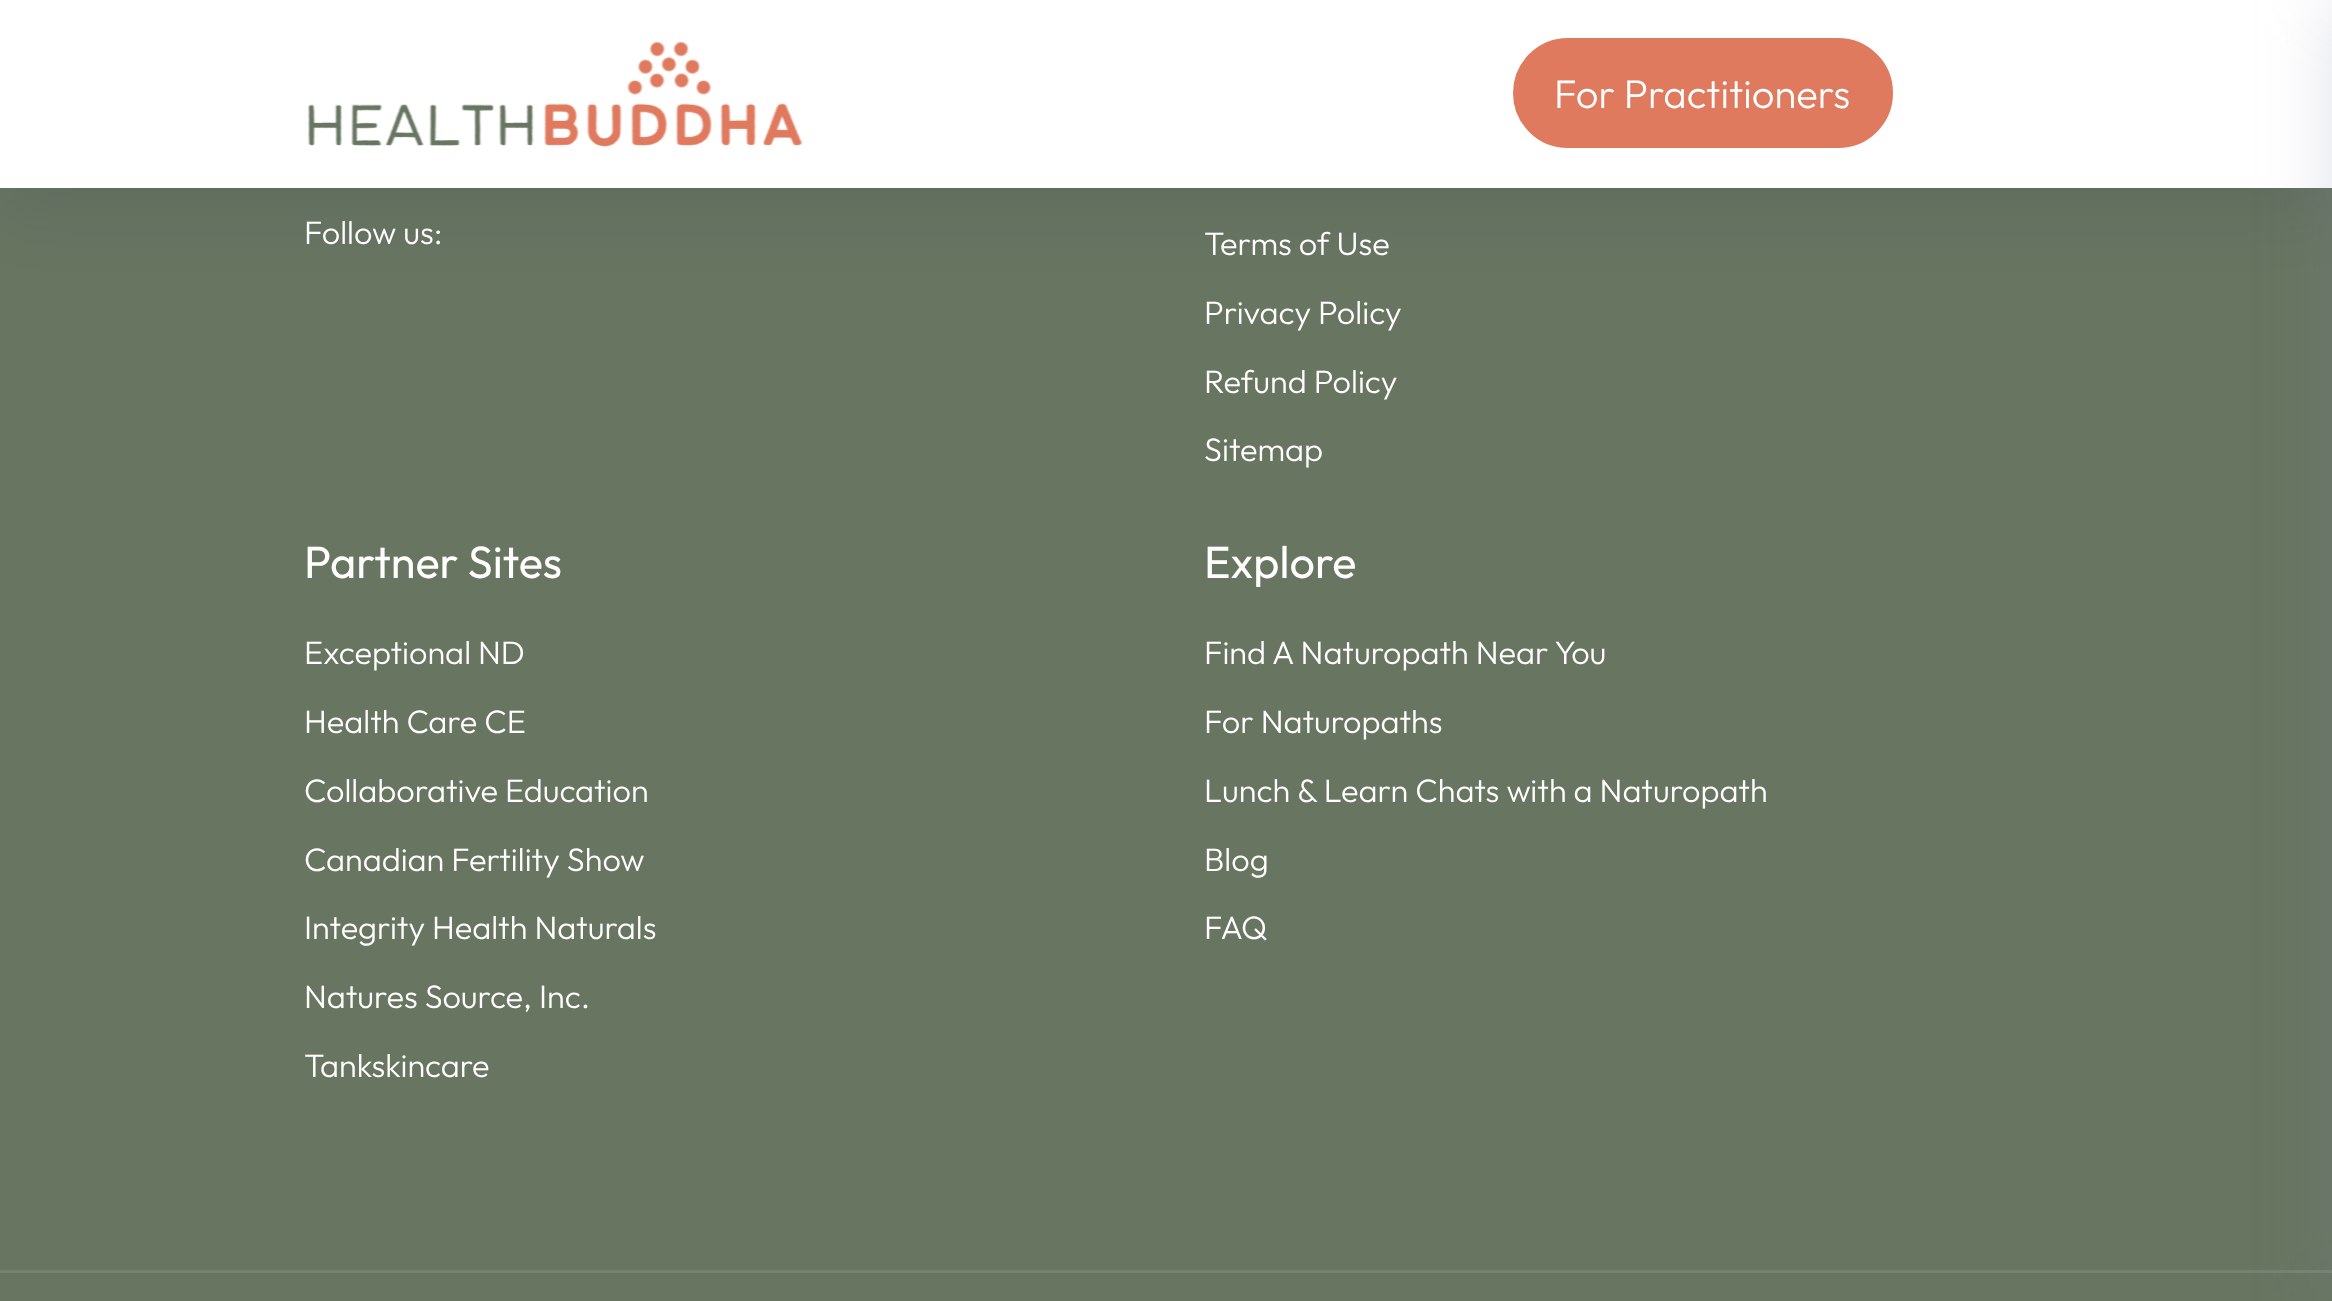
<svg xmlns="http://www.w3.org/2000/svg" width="2332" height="1301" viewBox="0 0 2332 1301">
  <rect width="100%" height="100%" fill="rgb(104,117,97)"/>
  <rect x="0" y="13" width="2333" height="187" fill="rgba(0,22,84,0.1)" filter="blur(37.5px)"/>
  <rect x="0" y="0" width="2332" height="188" fill="rgb(255,255,255)"/>
  <image x="307" y="41" width="496" height="106" href="pic1.png"/>
  <rect x="1514.5" y="39.5" width="377" height="107" rx="53.5" fill="rgb(224,122,95)" stroke="rgb(224,122,95)" stroke-width="3"/>
  <text x="1554" y="108" font-family="Outfit" font-size="40" font-weight="300" fill="rgb(255,255,255)">For Practitioners</text>
  <rect x="0" y="1270" width="2332" height="3" fill="rgb(119,131,113)"/>
  <rect x="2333" y="0" width="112" height="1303" fill="rgba(127,137,161,0.25)" filter="blur(37.5px)"/>
  <g font-family="Outfit" font-size="32.5" font-weight="300" fill="rgb(255,255,255)">
    <text x="304" y="244">Follow us:</text>
    <text x="1204" y="255">Terms of Use</text>
    <text x="1204" y="324">Privacy Policy</text>
    <text x="1204" y="393">Refund Policy</text>
    <text x="1204" y="461">Sitemap</text>
  </g>
  <text x="304" y="578" font-family="Outfit" font-size="45" fill="rgb(255,255,255)">Partner Sites</text>
  <g font-family="Outfit" font-size="32.5" font-weight="300" fill="rgb(255,255,255)">
    <text x="304" y="664">Exceptional ND</text>
    <text x="304" y="733">Health Care CE</text>
    <text x="304" y="802">Collaborative Education</text>
    <text x="304" y="871">Canadian Fertility Show</text>
    <text x="304" y="939">Integrity Health Naturals</text>
    <text x="304" y="1008">Natures Source, Inc.</text>
    <text x="304" y="1077">Tankskincare</text>
  </g>
  <text x="1204" y="578" font-family="Outfit" font-size="45" fill="rgb(255,255,255)">Explore</text>
  <g font-family="Outfit" font-size="32.5" font-weight="300" fill="rgb(255,255,255)">
    <text x="1204" y="664">Find A Naturopath Near You</text>
    <text x="1204" y="733">For Naturopaths</text>
    <text x="1204" y="802">Lunch &amp; Learn Chats with a Naturopath</text>
    <text x="1204" y="871">Blog</text>
    <text x="1204" y="939">FAQ</text>
  </g>
</svg>
